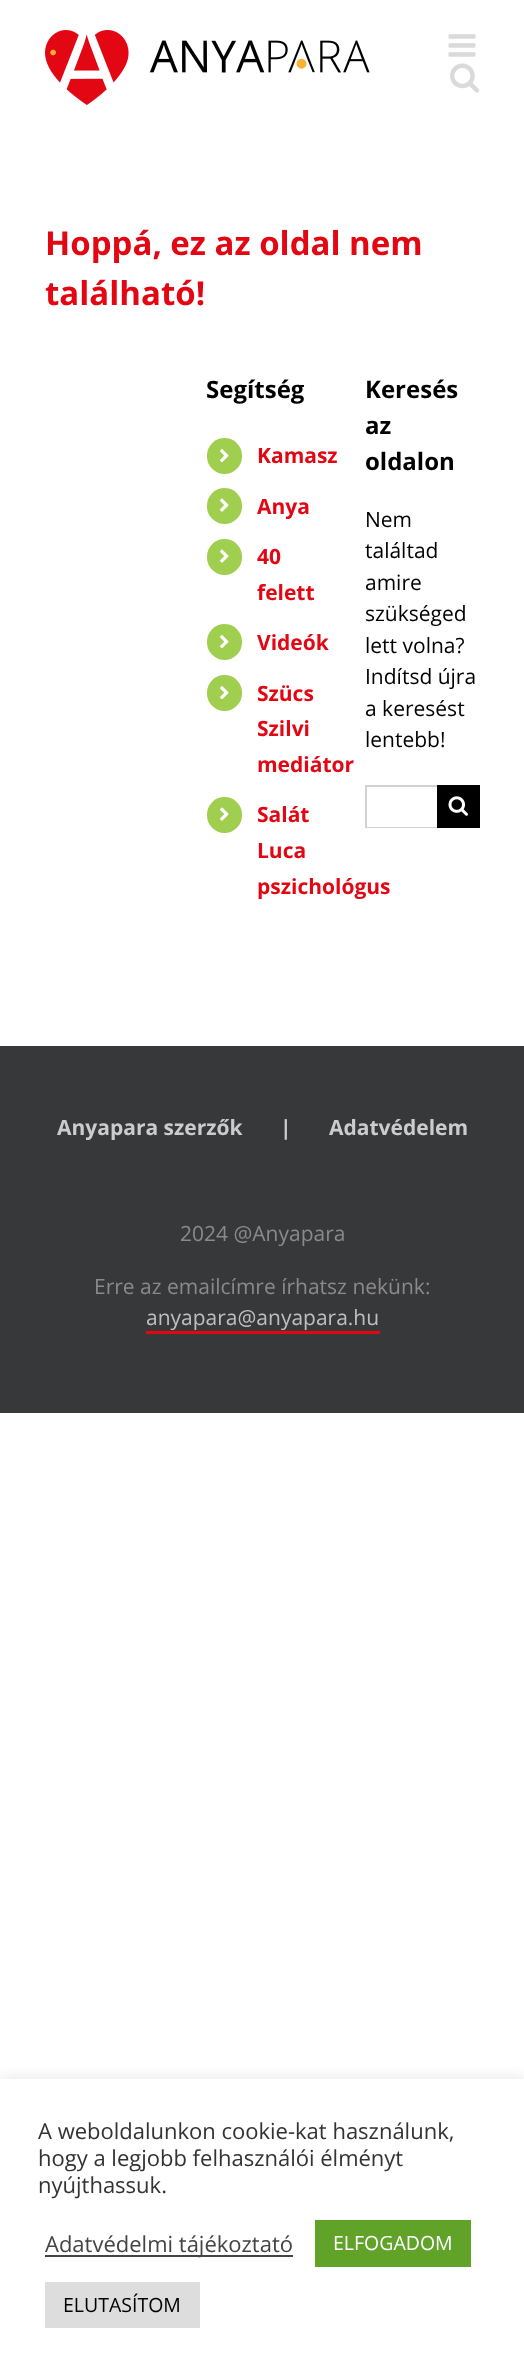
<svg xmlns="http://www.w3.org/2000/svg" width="524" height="2373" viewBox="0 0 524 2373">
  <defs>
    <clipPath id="clip1"><rect x="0" y="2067" width="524" height="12"/></clipPath>
  </defs>
  <rect width="100%" height="100%" fill="rgb(255,255,255)"/>
  <image x="45" y="30" width="325" height="75" href="pic1.png"/>
  <image x="448" y="34" width="28" height="23" href="pic2.png"/>
  <image x="450" y="63" width="30" height="30" href="pic3.png"/>
  <g font-family="Open Sans" font-size="33" font-weight="bold" fill="rgb(227,6,19)">
    <text>
      <tspan x="45" y="255">Hoppá, ez az oldal nem</tspan>
      <tspan x="45" y="305">található!</tspan>
    </text>
  </g>
  <text x="206" y="398" font-family="Open Sans" font-size="24" font-weight="bold" fill="rgb(0,0,0)">Segítség</text>
  <rect x="207" y="438" width="35" height="36" rx="17.5" fill="rgb(160,206,78)"/>
  <image x="220" y="449" width="9" height="14" href="pic4.png"/>
  <text x="257" y="463" font-family="Open Sans" font-size="21" font-weight="bold" fill="rgb(227,6,19)">Kamasz</text>
  <rect x="207" y="488" width="35" height="36" rx="17.5" fill="rgb(160,206,78)"/>
  <image x="220" y="498" width="9" height="14" href="pic5.png"/>
  <text x="257" y="514" font-family="Open Sans" font-size="21" font-weight="bold" fill="rgb(227,6,19)">Anya</text>
  <rect x="207" y="539" width="35" height="36" rx="17.5" fill="rgb(160,206,78)"/>
  <image x="220" y="549" width="9" height="14" href="pic5.png"/>
  <g font-family="Open Sans" font-size="21" font-weight="bold" fill="rgb(227,6,19)">
    <text>
      <tspan x="257" y="564">40</tspan>
      <tspan x="257" y="600">felett</tspan>
    </text>
  </g>
  <rect x="207" y="624" width="35" height="36" rx="17.5" fill="rgb(160,206,78)"/>
  <image x="220" y="635" width="9" height="14" href="pic4.png"/>
  <text x="257" y="650" font-family="Open Sans" font-size="21" font-weight="bold" fill="rgb(227,6,19)">Videók</text>
  <rect x="207" y="675" width="35" height="36" rx="17.5" fill="rgb(160,206,78)"/>
  <image x="220" y="686" width="9" height="14" href="pic4.png"/>
  <g font-family="Open Sans" font-size="21" font-weight="bold" fill="rgb(227,6,19)">
    <text>
      <tspan x="257" y="701">Szücs</tspan>
      <tspan x="257" y="736">Szilvi</tspan>
      <tspan x="257" y="772">mediátor</tspan>
    </text>
  </g>
  <rect x="207" y="797" width="35" height="36" rx="17.5" fill="rgb(160,206,78)"/>
  <image x="220" y="807" width="9" height="14" href="pic5.png"/>
  <g font-family="Open Sans" font-size="21" font-weight="bold" fill="rgb(227,6,19)">
    <text>
      <tspan x="257" y="822">Salát</tspan>
      <tspan x="257" y="858">Luca</tspan>
      <tspan x="257" y="894">pszichológus</tspan>
    </text>
  </g>
  <g font-family="Open Sans" font-size="24" font-weight="bold" fill="rgb(0,0,0)">
    <text>
      <tspan x="365" y="398">Keresés</tspan>
      <tspan x="365" y="434">az</tspan>
      <tspan x="365" y="470">oldalon</tspan>
    </text>
  </g>
  <g font-family="Open Sans" font-size="21" fill="rgb(0,0,0)">
    <text>
      <tspan x="365" y="527">Nem</tspan>
      <tspan x="365" y="558">találtad</tspan>
      <tspan x="365" y="590">amire</tspan>
      <tspan x="365" y="621">szükséged</tspan>
      <tspan x="365" y="653">lett volna?</tspan>
      <tspan x="365" y="684">Indítsd újra</tspan>
      <tspan x="365" y="716">a keresést</tspan>
      <tspan x="365" y="747">lentebb!</tspan>
    </text>
  </g>
  <rect x="365" y="785" width="72" height="2" fill="rgb(210,210,210)"/>
  <rect x="365" y="827" width="72" height="1" fill="rgb(210,210,210)"/>
  <rect x="365" y="785" width="2" height="43" fill="rgb(210,210,210)"/>
  <rect x="437" y="785" width="43" height="43" fill="rgb(0,0,0)"/>
  <image x="448" y="796" width="20" height="20" href="pic6.png"/>
  <rect x="0" y="1046" width="524" height="367" fill="rgb(54,56,57)"/>
  <g font-family="Open Sans" font-size="21" font-weight="bold" fill="rgb(204,204,204)">
    <text x="57" y="1135">Anyapara szerzők</text>
    <text x="280" y="1135">|</text>
    <text x="329" y="1135">Adatvédelem</text>
  </g>
  <g font-family="Open Sans" font-size="21" fill="rgb(140,137,137)">
    <text x="180" y="1241">2024 @Anyapara</text>
    <text x="94" y="1294">Erre az emailcímre írhatsz nekünk:</text>
  </g>
  <text x="146" y="1325" font-family="Open Sans" font-size="21" fill="rgb(191,191,191)">anyapara@anyapara.hu</text>
  <rect x="146" y="1331" width="234" height="3" fill="rgb(227,6,19)"/>
  <g clip-path="url(#clip1)">
    <rect x="0" y="2078" width="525" height="294" fill="rgba(172,171,171,0.3)" filter="blur(7.5px)"/>
  </g>
  <g font-family="Open Sans" font-size="22" fill="rgb(51,51,51)">
    <text>
      <tspan x="38" y="2139">A weboldalunkon cookie-kat használunk,</tspan>
      <tspan x="38" y="2166">hogy a legjobb felhasználói élményt</tspan>
      <tspan x="38" y="2193">nyújthassuk.</tspan>
    </text>
  </g>
  <rect x="45" y="2255" width="248" height="2" fill="rgb(68,68,68)"/>
  <text x="45" y="2252" font-family="Open Sans" font-size="22" fill="rgb(68,68,68)">Adatvédelmi tájékoztató</text>
  <rect x="315" y="2220" width="156" height="47" fill="rgb(97,162,41)"/>
  <text x="333" y="2250" font-family="Open Sans" font-size="19.5" fill="rgb(255,255,255)">ELFOGADOM</text>
  <rect x="45" y="2282" width="155" height="46" fill="rgb(221,221,221)"/>
  <text x="63" y="2312" font-family="Open Sans" font-size="19.5" fill="rgb(0,0,0)">ELUTASÍTOM</text>
</svg>
